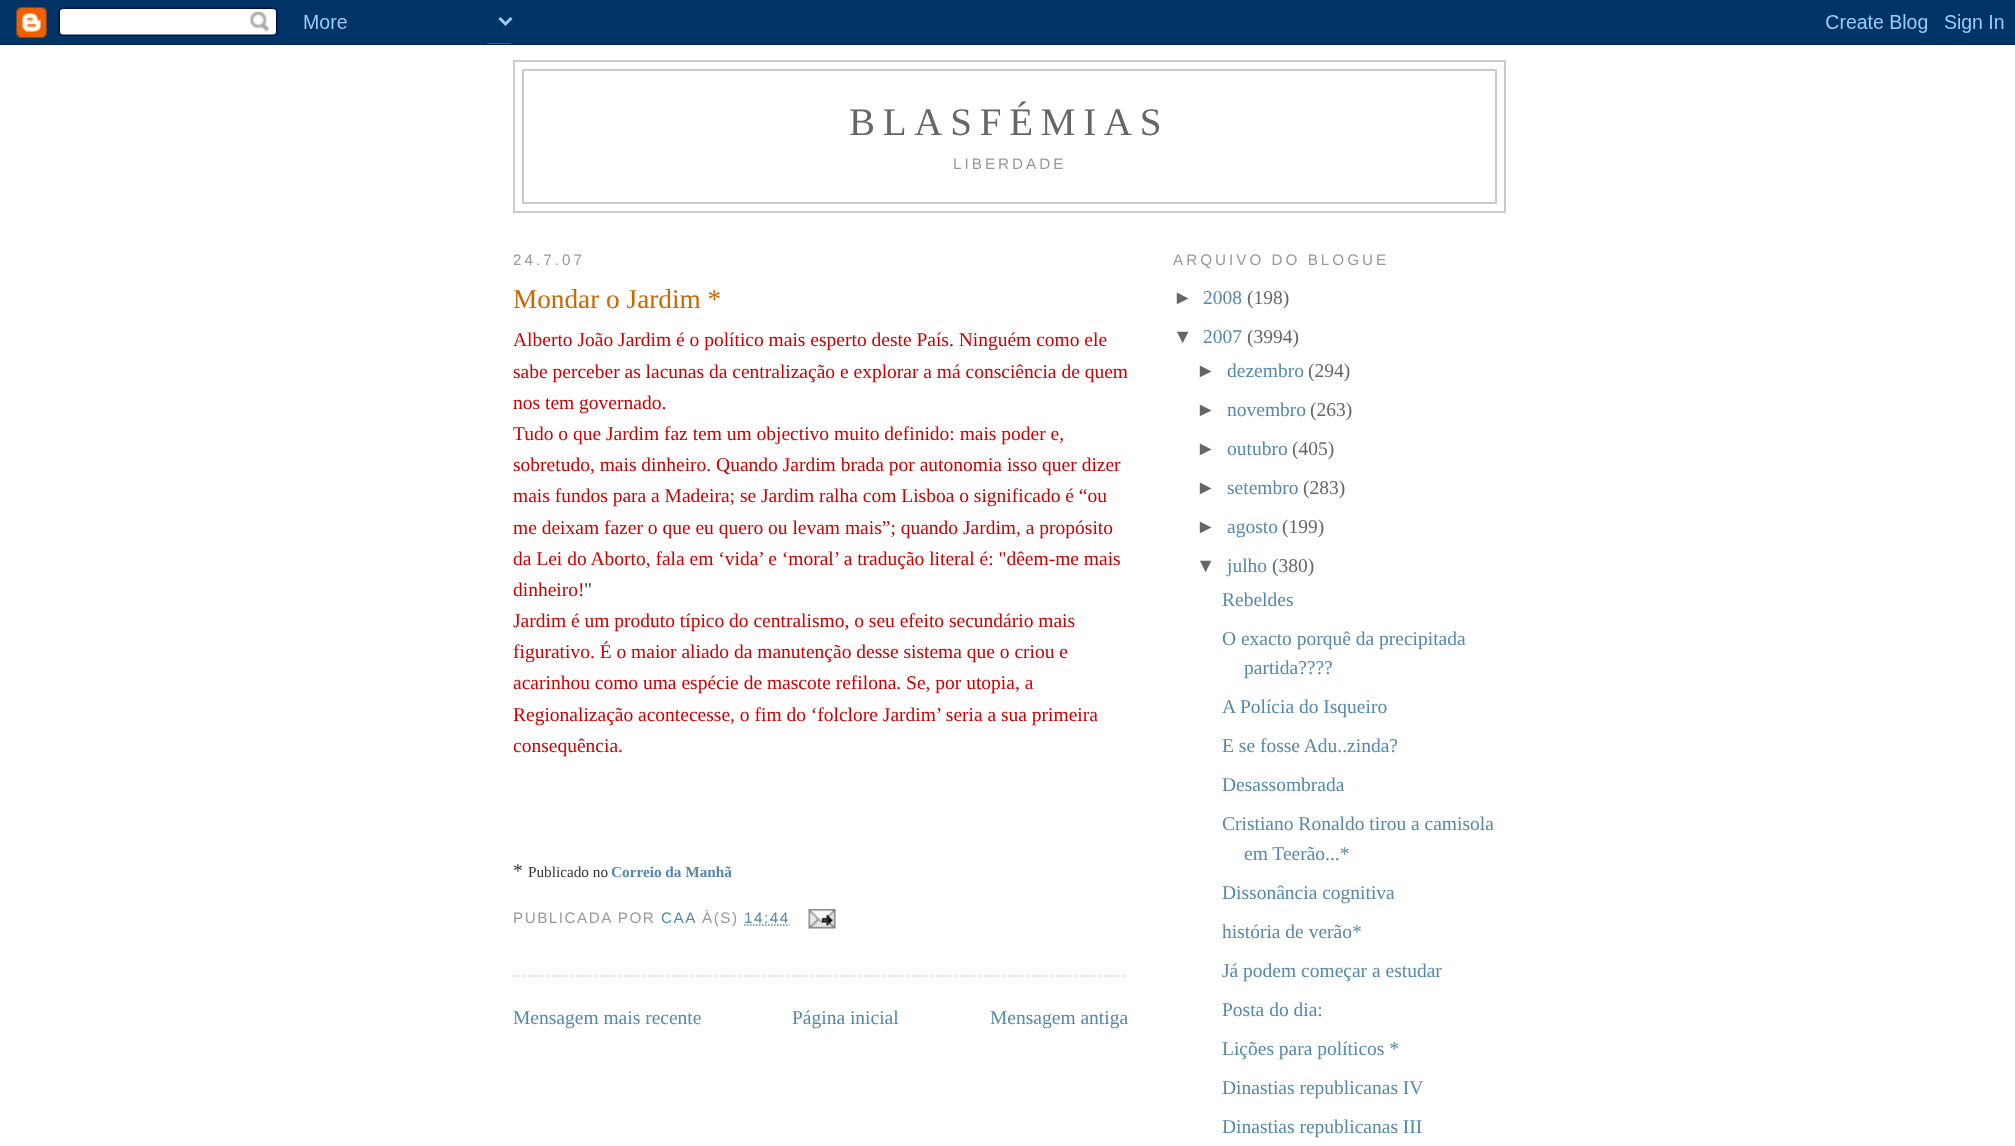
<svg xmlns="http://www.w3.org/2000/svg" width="2015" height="1146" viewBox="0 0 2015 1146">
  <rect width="100%" height="100%" fill="rgb(255,255,255)"/>
  <image x="0" y="0" width="2015" height="45" href="pic1.png"/>
  <rect x="514" y="61" width="991" height="151" fill="none" stroke="rgb(204,204,204)" stroke-width="2"/>
  <rect x="523" y="70" width="973" height="133" fill="none" stroke="rgb(204,204,204)" stroke-width="2"/>
  <text x="849" y="135" font-family="Liberation Serif" font-size="39" letter-spacing="7.75" fill="rgb(102,102,102)">BLASFÉMIAS</text>
  <g font-family="Liberation Sans" font-size="15.25" letter-spacing="3" fill="rgb(153,153,153)">
    <text x="953" y="169">LIBERDADE</text>
    <text x="513" y="265">24.7.07</text>
  </g>
  <path d="M513 976H1128" fill="none" stroke="rgb(204,204,204)" stroke-width="1.5" stroke-dasharray="1.5 1.5"/>
  <text x="513" y="308" font-family="Liberation Serif" font-size="27.25" fill="rgb(204,102,0)">Mondar o Jardim *</text>
  <g font-family="Liberation Serif" font-size="19.5" fill="rgb(204,0,0)">
    <text>
      <tspan x="513" y="346">Alberto João Jardim é o político mais esperto deste País. Ninguém como ele</tspan>
      <tspan x="513" y="378">sabe perceber as lacunas da centralização e explorar a má consciência de quem</tspan>
      <tspan x="513" y="409">nos tem governado.</tspan>
      <tspan x="513" y="440">Tudo o que Jardim faz tem um objectivo muito definido: mais poder e,</tspan>
      <tspan x="513" y="471">sobretudo, mais dinheiro. Quando Jardim brada por autonomia isso quer dizer</tspan>
      <tspan x="513" y="502">mais fundos para a Madeira; se Jardim ralha com Lisboa o significado é “ou</tspan>
      <tspan x="513" y="534">me deixam fazer o que eu quero ou levam mais”; quando Jardim, a propósito</tspan>
      <tspan x="513" y="565">da Lei do Aborto, fala em ‘vida’ e ‘moral’ a tradução literal é: "dêem-me mais</tspan>
      <tspan x="513" y="596">dinheiro!</tspan>
    </text>
  </g>
  <text x="584" y="596" font-family="Liberation Serif" font-size="19.5" fill="rgb(51,51,51)">"</text>
  <g font-family="Liberation Serif" font-size="19.5" fill="rgb(204,0,0)">
    <text>
      <tspan x="513" y="627">Jardim é um produto típico do centralismo, o seu efeito secundário mais</tspan>
      <tspan x="513" y="658">figurativo. É o maior aliado da manutenção desse sistema que o criou e</tspan>
      <tspan x="513" y="689">acarinhou como uma espécie de mascote refilona. Se, por utopia, a</tspan>
      <tspan x="513" y="721">Regionalização acontecesse, o fim do ‘folclore Jardim’ seria a sua primeira</tspan>
      <tspan x="513" y="752">consequência.</tspan>
    </text>
  </g>
  <text x="513" y="877" font-family="Liberation Serif" font-size="19.5" fill="rgb(51,51,51)">*</text>
  <text x="528" y="877" font-family="Liberation Serif" font-size="15.25" fill="rgb(51,51,51)">Publicado no</text>
  <text x="611" y="877" font-family="Liberation Serif" font-size="15.25" font-weight="bold" fill="rgb(85,136,170)">Correio da Manhã</text>
  <text x="513" y="923" font-family="Liberation Sans" font-size="15.25" letter-spacing="1.5" fill="rgb(153,153,153)">PUBLICADA POR</text>
  <text x="661" y="923" font-family="Liberation Sans" font-size="15.25" letter-spacing="1.5" fill="rgb(85,136,170)">CAA</text>
  <text x="702" y="923" font-family="Liberation Sans" font-size="15.25" letter-spacing="1.5" fill="rgb(153,153,153)">À(S)</text>
  <text x="744" y="923" font-family="Liberation Sans" font-size="15.25" letter-spacing="1.5" fill="rgb(85,136,170)">14:44</text>
  <path d="M744 925H789.5" fill="none" stroke="rgb(85,136,170)" stroke-width="1.5" stroke-dasharray="1.5 1.5"/>
  <image x="808" y="909" width="28" height="20" href="pic2.png"/>
  <g font-family="Liberation Serif" font-size="19.5" fill="rgb(85,136,170)">
    <text x="513" y="1024">Mensagem mais recente</text>
    <text x="792" y="1024">Página inicial</text>
    <text x="990" y="1024">Mensagem antiga</text>
  </g>
  <text x="1173" y="265" font-family="Liberation Sans" font-size="15.25" letter-spacing="3" fill="rgb(153,153,153)">ARQUIVO DO BLOGUE</text>
  <text x="1173" y="304" font-family="Liberation Sans" font-size="19.5" fill="rgb(102,102,102)">►</text>
  <text x="1203" y="304" font-family="Liberation Serif" font-size="19.5" fill="rgb(85,136,170)">2008</text>
  <text x="1247" y="304" font-family="Liberation Serif" font-size="19.5" fill="rgb(102,102,102)">(198)</text>
  <text x="1173" y="343" font-family="Liberation Sans" font-size="19.5" fill="rgb(102,102,102)">▼</text>
  <text x="1203" y="343" font-family="Liberation Serif" font-size="19.5" fill="rgb(85,136,170)">2007</text>
  <text x="1247" y="343" font-family="Liberation Serif" font-size="19.5" fill="rgb(102,102,102)">(3994)</text>
  <text x="1196" y="377" font-family="Liberation Sans" font-size="19.5" fill="rgb(102,102,102)">►</text>
  <text x="1227" y="377" font-family="Liberation Serif" font-size="19.5" fill="rgb(85,136,170)">dezembro</text>
  <text x="1308" y="377" font-family="Liberation Serif" font-size="19.5" fill="rgb(102,102,102)">(294)</text>
  <text x="1196" y="416" font-family="Liberation Sans" font-size="19.5" fill="rgb(102,102,102)">►</text>
  <text x="1227" y="416" font-family="Liberation Serif" font-size="19.5" fill="rgb(85,136,170)">novembro</text>
  <text x="1310" y="416" font-family="Liberation Serif" font-size="19.5" fill="rgb(102,102,102)">(263)</text>
  <text x="1196" y="455" font-family="Liberation Sans" font-size="19.5" fill="rgb(102,102,102)">►</text>
  <text x="1227" y="455" font-family="Liberation Serif" font-size="19.5" fill="rgb(85,136,170)">outubro</text>
  <text x="1292" y="455" font-family="Liberation Serif" font-size="19.5" fill="rgb(102,102,102)">(405)</text>
  <text x="1196" y="494" font-family="Liberation Sans" font-size="19.5" fill="rgb(102,102,102)">►</text>
  <text x="1227" y="494" font-family="Liberation Serif" font-size="19.5" fill="rgb(85,136,170)">setembro</text>
  <text x="1303" y="494" font-family="Liberation Serif" font-size="19.5" fill="rgb(102,102,102)">(283)</text>
  <text x="1196" y="533" font-family="Liberation Sans" font-size="19.5" fill="rgb(102,102,102)">►</text>
  <text x="1227" y="533" font-family="Liberation Serif" font-size="19.5" fill="rgb(85,136,170)">agosto</text>
  <text x="1282" y="533" font-family="Liberation Serif" font-size="19.5" fill="rgb(102,102,102)">(199)</text>
  <text x="1196" y="572" font-family="Liberation Sans" font-size="19.5" fill="rgb(102,102,102)">▼</text>
  <text x="1227" y="572" font-family="Liberation Serif" font-size="19.5" fill="rgb(85,136,170)">julho</text>
  <text x="1272" y="572" font-family="Liberation Serif" font-size="19.5" fill="rgb(102,102,102)">(380)</text>
  <g font-family="Liberation Serif" font-size="19.5" fill="rgb(85,136,170)">
    <text x="1222" y="606">Rebeldes</text>
    <text x="1222" y="645">O exacto porquê da precipitada</text>
    <text x="1244" y="674">partida????</text>
    <text x="1222" y="713">A Polícia do Isqueiro</text>
    <text x="1222" y="752">E se fosse Adu..zinda?</text>
    <text x="1222" y="791">Desassombrada</text>
    <text x="1222" y="830">Cristiano Ronaldo tirou a camisola</text>
    <text x="1244" y="860">em Teerão...*</text>
    <text x="1222" y="899">Dissonância cognitiva</text>
    <text x="1222" y="938">história de verão*</text>
    <text x="1222" y="977">Já podem começar a estudar</text>
    <text x="1222" y="1016">Posta do dia:</text>
    <text x="1222" y="1055">Lições para políticos *</text>
    <text x="1222" y="1094">Dinastias republicanas IV</text>
    <text x="1222" y="1133">Dinastias republicanas III</text>
  </g>
</svg>
